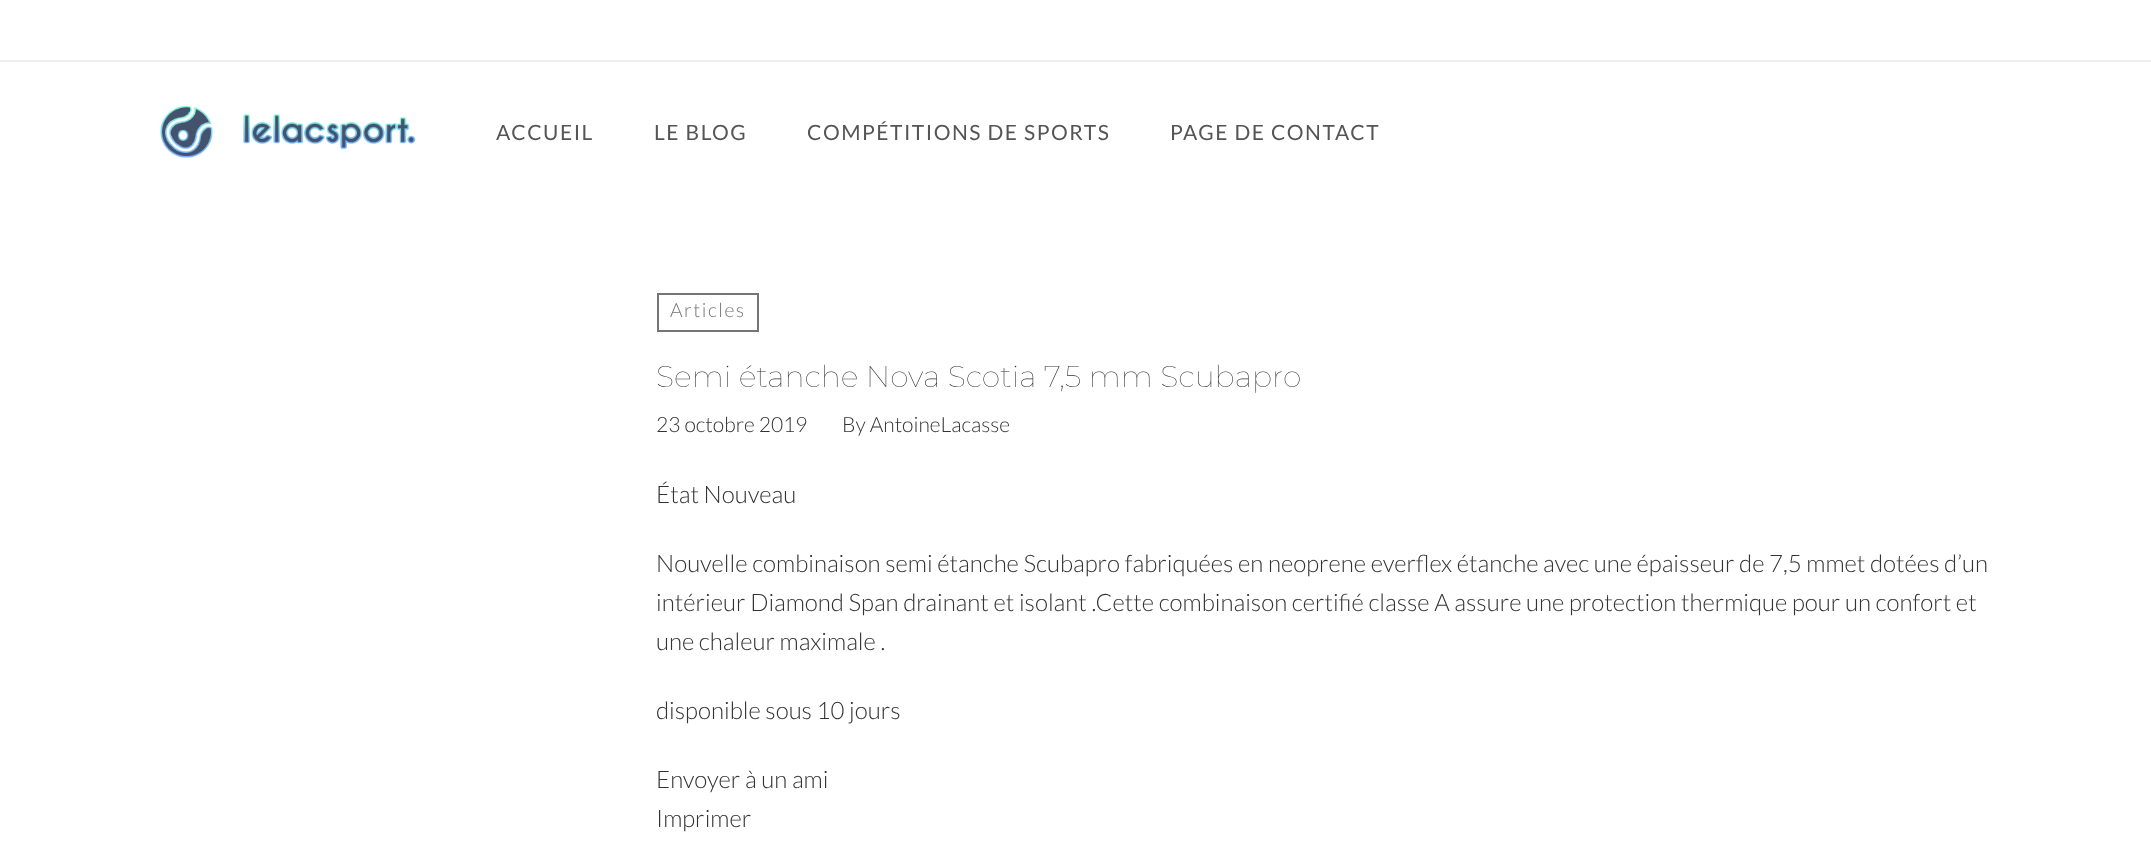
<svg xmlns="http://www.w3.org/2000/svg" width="2151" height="841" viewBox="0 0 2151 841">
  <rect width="100%" height="100%" fill="rgb(255,255,255)"/>
  <rect x="0" y="60" width="2151" height="2" fill="rgb(238,238,238)"/>
  <image x="160" y="105" width="256" height="53" href="pic1.png"/>
  <text x="496" y="140" font-family="Lato" font-size="21" letter-spacing="1.5" fill="rgb(85,85,85)">ACCUEIL</text>
  <image x="466" y="208" width="1" height="3" href="pic2.png"/>
  <g font-family="Lato" font-size="21" letter-spacing="1.5" fill="rgb(85,85,85)">
    <text x="654" y="140">LE BLOG</text>
    <text x="807" y="140">COMPÉTITIONS DE SPORTS</text>
    <text x="1170" y="140">PAGE DE CONTACT</text>
  </g>
  <rect x="658" y="294" width="100" height="37" fill="none" stroke="rgb(117,117,117)" stroke-width="2"/>
  <text x="670" y="317" font-family="Lato" font-size="19.5" font-weight="300" letter-spacing="1.5" fill="rgb(117,117,117)">Articles</text>
  <text x="656" y="387" font-family="Montserrat" font-size="30" font-weight="100" fill="rgb(51,51,51)">Semi étanche Nova Scotia 7,5 mm Scubapro</text>
  <g font-family="Lato" font-size="21" font-weight="300" fill="rgb(51,51,51)">
    <text x="656" y="432">23 octobre 2019</text>
    <text x="842" y="432">By AntoineLacasse</text>
  </g>
  <g font-family="Lato" font-size="24" font-weight="300" fill="rgb(51,51,51)">
    <text x="656" y="503">État Nouveau</text>
    <text>
      <tspan x="656" y="572">Nouvelle combinaison semi étanche Scubapro fabriquées en neoprene everflex étanche avec une épaisseur de 7,5 mmet dotées d’un</tspan>
      <tspan x="656" y="611">intérieur Diamond Span drainant et isolant .Cette combinaison certifié classe A assure une protection thermique pour un confort et</tspan>
      <tspan x="656" y="650">une chaleur maximale .</tspan>
    </text>
    <text x="656" y="719">disponible sous 10 jours</text>
    <text>
      <tspan x="656" y="788">Envoyer à un ami</tspan>
      <tspan x="656" y="827">Imprimer</tspan>
    </text>
  </g>
</svg>
